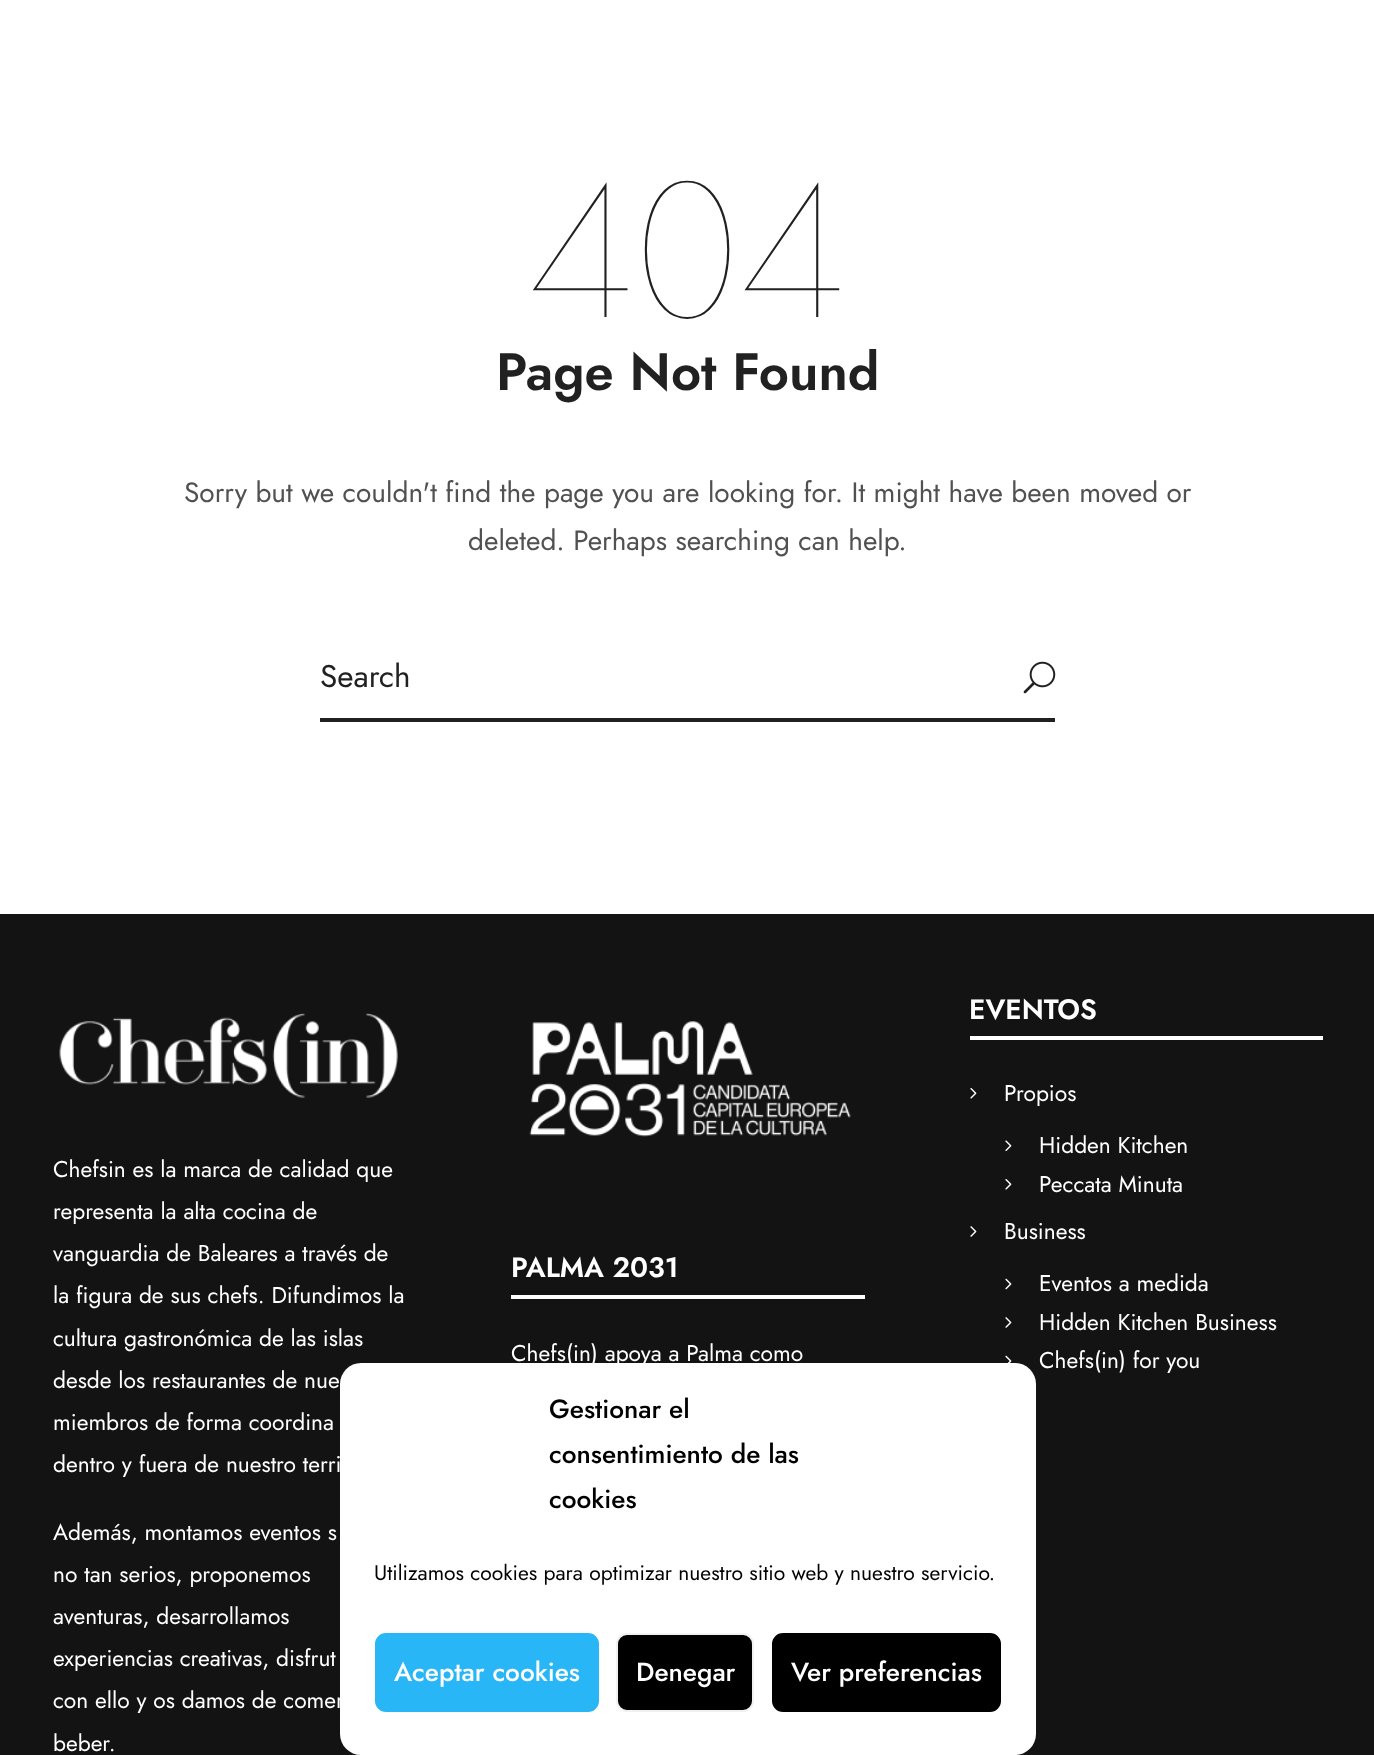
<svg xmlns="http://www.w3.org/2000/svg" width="1374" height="1755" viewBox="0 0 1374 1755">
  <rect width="100%" height="100%" fill="rgb(255,255,255)"/>
  <text x="528" y="317" font-family="Jost" font-size="192" font-weight="100" fill="rgb(33,33,33)">404</text>
  <text x="496" y="390" font-family="Jost" font-size="52.5" font-weight="600" fill="rgb(33,33,33)">Page Not Found</text>
  <g font-family="Jost" font-size="28" fill="rgb(81,81,81)">
    <text x="184" y="502">Sorry but we couldn't find the page you are looking for. It might have been moved or</text>
    <text x="468" y="550">deleted. Perhaps searching can help.</text>
  </g>
  <rect x="320" y="718" width="735" height="4" fill="rgb(33,33,33)"/>
  <text x="320" y="687" font-family="Jost" font-size="31.5" fill="rgb(33,33,33)">Search</text>
  <image x="1023" y="661" width="33" height="33" href="pic1.png"/>
  <rect x="0" y="914" width="1374" height="841" fill="rgb(19,19,19)"/>
  <image x="59" y="1013" width="340" height="85" href="pic2.png"/>
  <g font-family="Jost" font-size="22.75" fill="rgb(255,255,255)">
    <text>
      <tspan x="53" y="1177">Chefsin es la marca de calidad que</tspan>
      <tspan x="53" y="1219">representa la alta cocina de</tspan>
      <tspan x="53" y="1261">vanguardia de Baleares a través de</tspan>
      <tspan x="53" y="1303">la figura de sus chefs. Difundimos la</tspan>
      <tspan x="53" y="1346">cultura gastronómica de las islas</tspan>
      <tspan x="53" y="1388">desde los restaurantes de nue</tspan>
      <tspan x="53" y="1430">miembros de forma coordina</tspan>
      <tspan x="53" y="1472">dentro y fuera de nuestro terri</tspan>
    </text>
    <text>
      <tspan x="53" y="1540">Además, montamos eventos s</tspan>
      <tspan x="53" y="1582">no tan serios, proponemos</tspan>
      <tspan x="53" y="1624">aventuras, desarrollamos</tspan>
      <tspan x="53" y="1666">experiencias creativas, disfrut</tspan>
      <tspan x="53" y="1708">con ello y os damos de comer</tspan>
      <tspan x="53" y="1751">beber.</tspan>
    </text>
  </g>
  <image x="529" y="1021" width="322" height="116" href="pic3.png"/>
  <rect x="511" y="1295" width="354" height="4" fill="rgb(255,255,255)"/>
  <text x="511" y="1277" font-family="Jost" font-size="28" font-weight="600" fill="rgb(255,255,255)">PALMA 2031</text>
  <text x="511" y="1361" font-family="Jost" font-size="22.75" fill="rgb(255,255,255)">Chefs(in) apoya a Palma como</text>
  <rect x="970" y="1036" width="353" height="4" fill="rgb(255,255,255)"/>
  <text x="969" y="1019" font-family="Jost" font-size="28" font-weight="600" fill="rgb(255,255,255)">EVENTOS</text>
  <image x="970" y="1088" width="7" height="11" href="pic4.png"/>
  <text x="1004" y="1101" font-family="Jost" font-size="22.75" fill="rgb(255,255,255)">Propios</text>
  <image x="1005" y="1140" width="7" height="11" href="pic5.png"/>
  <text x="1039" y="1153" font-family="Jost" font-size="22.75" fill="rgb(255,255,255)">Hidden Kitchen</text>
  <image x="1005" y="1179" width="7" height="11" href="pic4.png"/>
  <text x="1039" y="1192" font-family="Jost" font-size="22.75" fill="rgb(255,255,255)">Peccata Minuta</text>
  <image x="970" y="1226" width="7" height="11" href="pic6.png"/>
  <text x="1004" y="1239" font-family="Jost" font-size="22.75" fill="rgb(255,255,255)">Business</text>
  <image x="1005" y="1278" width="7" height="12" href="pic7.png"/>
  <text x="1039" y="1291" font-family="Jost" font-size="22.75" fill="rgb(255,255,255)">Eventos a medida</text>
  <image x="1005" y="1317" width="7" height="11" href="pic6.png"/>
  <text x="1039" y="1330" font-family="Jost" font-size="22.75" fill="rgb(255,255,255)">Hidden Kitchen Business</text>
  <image x="1005" y="1355" width="7" height="8" href="pic8.png"/>
  <text x="1039" y="1368" font-family="Jost" font-size="22.75" fill="rgb(255,255,255)">Chefs(in) for you</text>
  <rect x="340" y="1363" width="696" height="392" rx="21" fill="rgb(255,255,255)"/>
  <g font-family="Jost" font-size="26.25" font-weight="500" fill="rgb(0,0,0)">
    <text>
      <tspan x="549" y="1418">Gestionar el</tspan>
      <tspan x="549" y="1463">consentimiento de las</tspan>
      <tspan x="549" y="1508">cookies</tspan>
    </text>
  </g>
  <text x="374" y="1580" font-family="Jost" font-size="21" fill="rgb(0,0,0)">Utilizamos cookies para optimizar nuestro sitio web y nuestro servicio.</text>
  <rect x="376" y="1634" width="222" height="77" rx="10" fill="rgb(41,182,246)" stroke="rgb(41,182,246)" stroke-width="2"/>
  <text x="394" y="1681" font-family="Jost" font-size="26.25" font-weight="500" fill="rgb(255,255,255)">Aceptar cookies</text>
  <rect x="617" y="1634" width="136" height="77" rx="10" fill="rgb(0,0,0)" stroke="rgb(241,241,241)" stroke-width="2"/>
  <text x="636" y="1681" font-family="Jost" font-size="26.25" font-weight="500" fill="rgb(255,255,255)">Denegar</text>
  <rect x="773" y="1634" width="227" height="77" rx="10" fill="rgb(0,0,0)" stroke="rgb(0,0,0)" stroke-width="2"/>
  <text x="791" y="1681" font-family="Jost" font-size="26.25" font-weight="500" fill="rgb(255,255,255)">Ver preferencias</text>
</svg>
